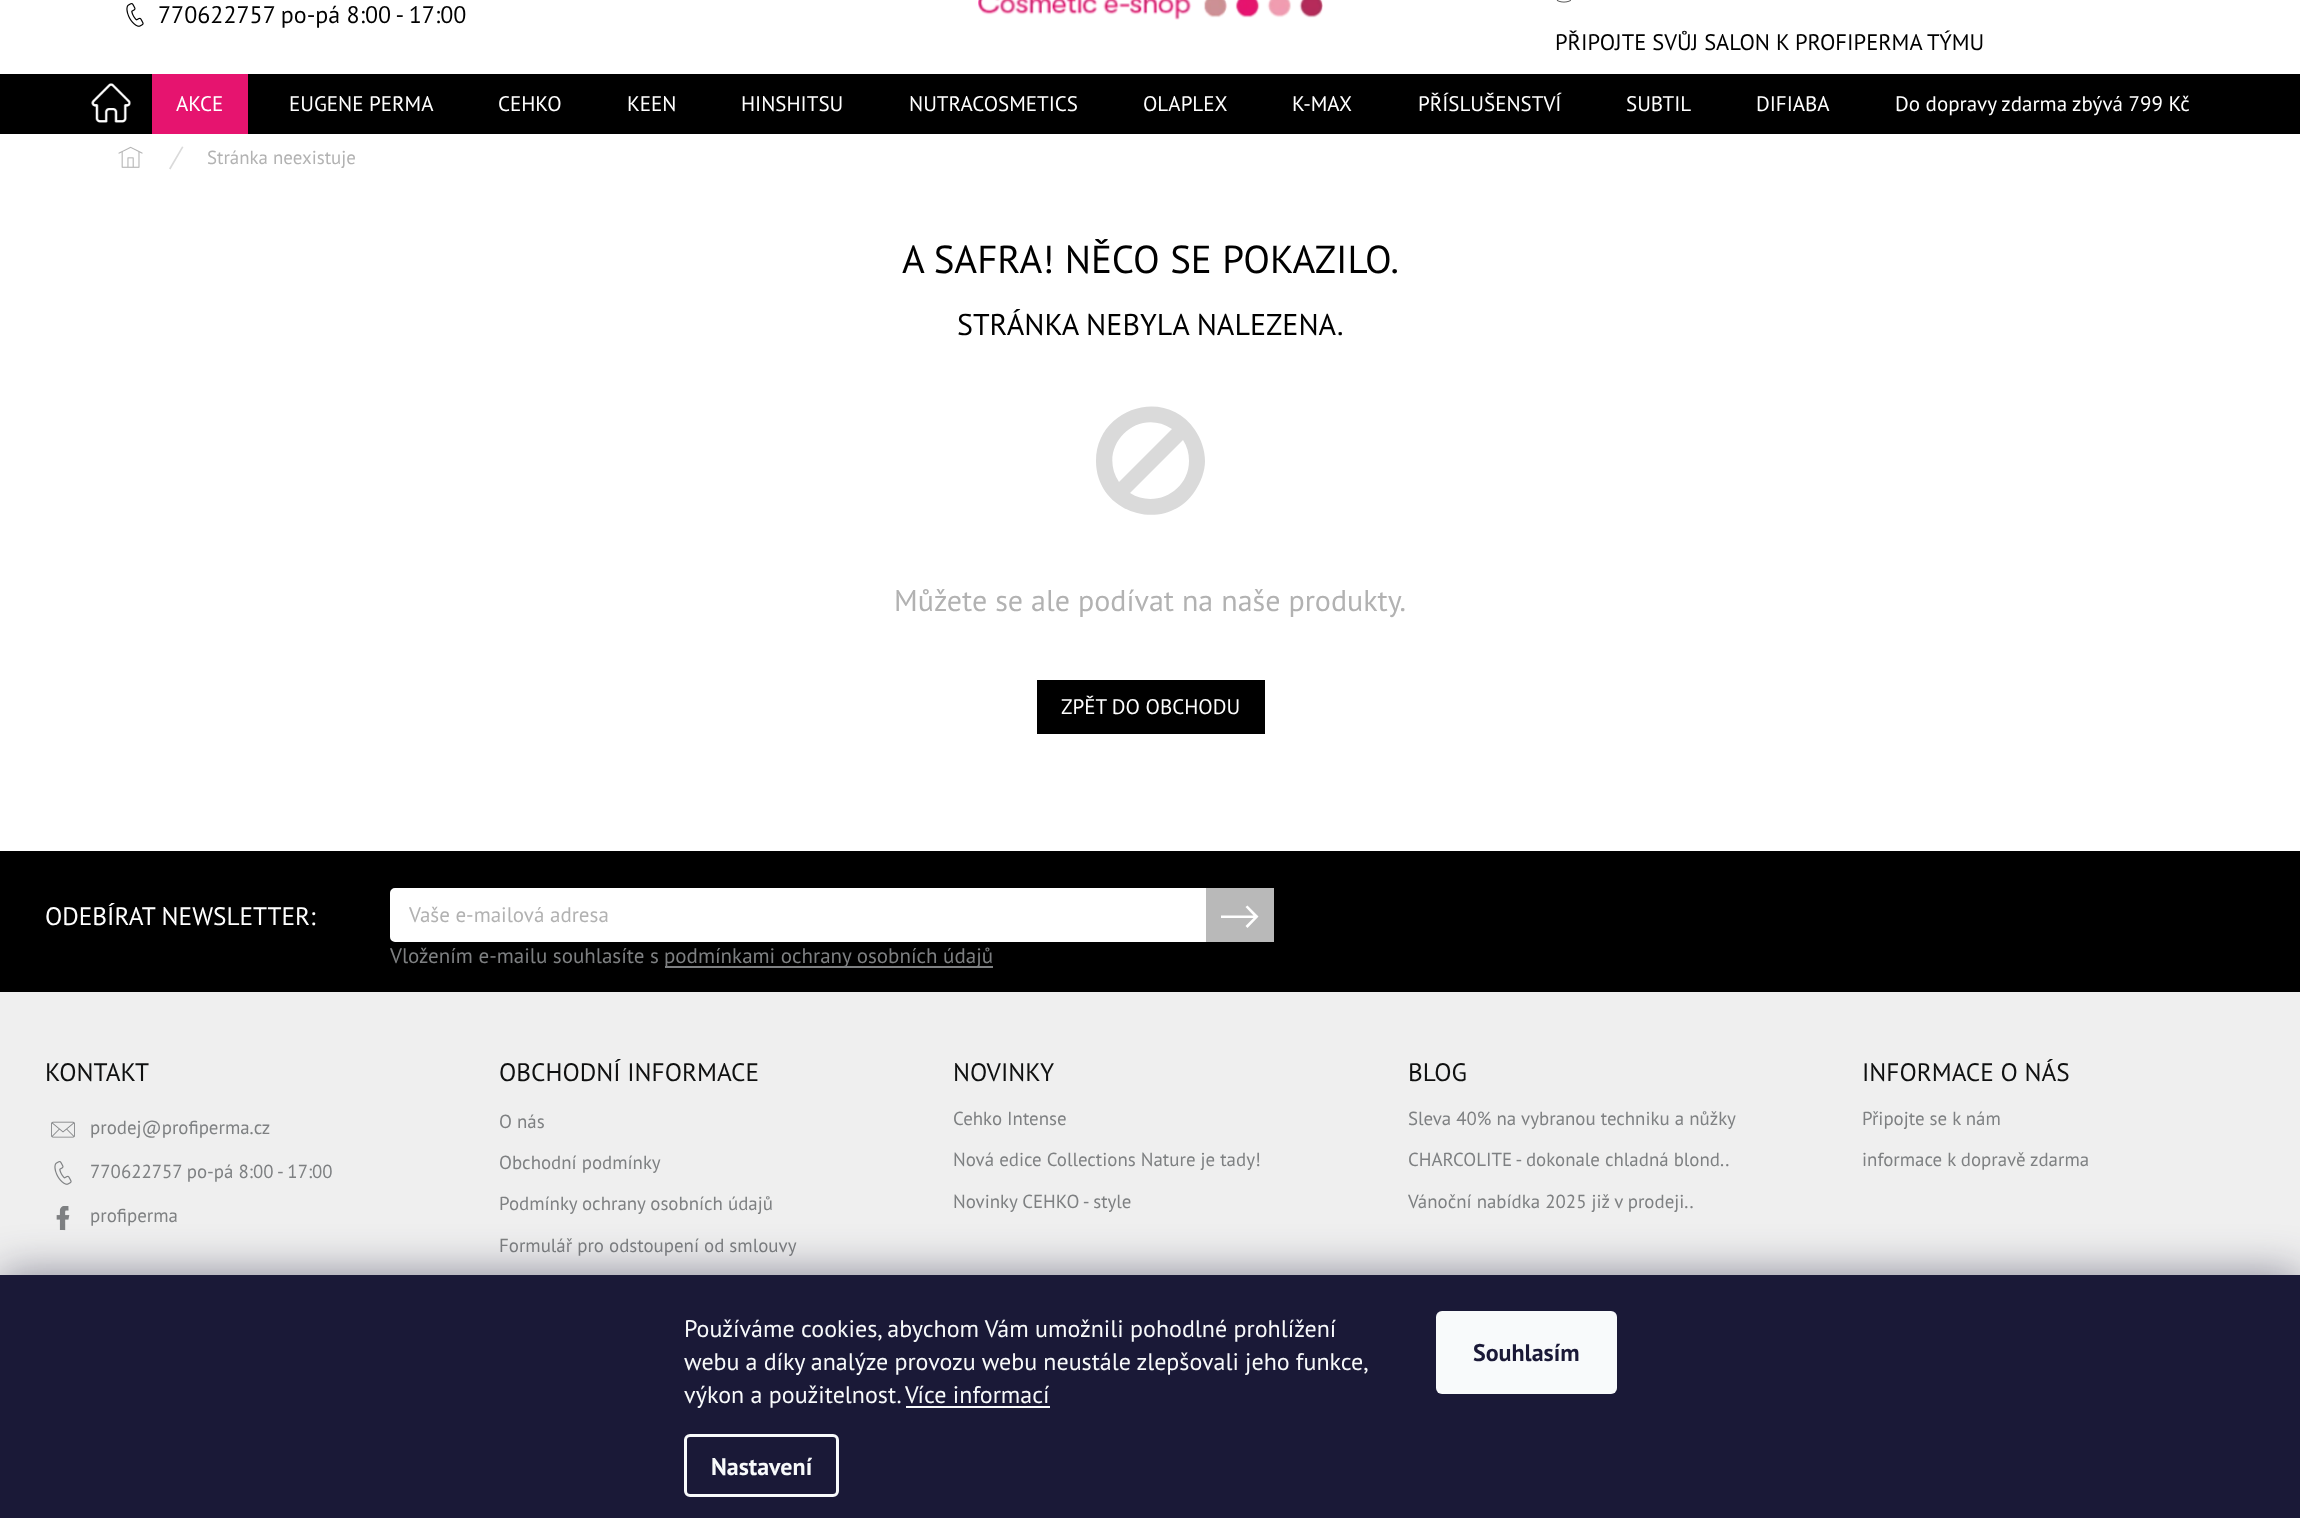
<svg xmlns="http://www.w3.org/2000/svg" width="2300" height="1518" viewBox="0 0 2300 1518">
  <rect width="100%" height="100%" fill="rgb(255,255,255)"/>
  <rect x="0" y="74" width="2300" height="60" fill="rgb(0,0,0)"/>
  <image x="126" y="3" width="18" height="24" href="pic1.png"/>
  <text x="158" y="23" font-family="PT Sans" font-size="24" fill="rgb(0,0,0)">770622757 po-pá 8:00 - 17:00</text>
  <image x="978" y="0" width="345" height="20" href="pic2.png"/>
  <image x="91" y="83" width="40" height="40" href="pic3.png"/>
  <rect x="152" y="74" width="96" height="60" fill="rgb(230,20,111)"/>
  <g font-family="PT Sans" font-size="21" fill="rgb(255,255,255)">
    <text x="176" y="111">AKCE</text>
    <text x="289" y="111">EUGENE PERMA</text>
    <text x="498" y="111">CEHKO</text>
    <text x="627" y="111">KEEN</text>
    <text x="741" y="111">HINSHITSU</text>
    <text x="909" y="111">NUTRACOSMETICS</text>
    <text x="1143" y="111">OLAPLEX</text>
    <text x="1292" y="111">K-MAX</text>
    <text x="1418" y="111">PŘÍSLUŠENSTVÍ</text>
    <text x="1626" y="111">SUBTIL</text>
    <text x="1756" y="111">DIFIABA</text>
    <text x="1895" y="111">Do dopravy zdarma zbývá 799 Kč</text>
  </g>
  <image x="1556" y="0" width="15" height="3" href="pic4.png"/>
  <text x="1555" y="50" font-family="PT Sans" font-size="22.5" fill="rgb(0,0,0)">PŘIPOJTE SVŮJ SALON K PROFIPERMA TÝMU</text>
  <image x="118" y="146" width="25" height="22" href="pic5.png"/>
  <path d="M182 146.5L183.5 147L170.5 169.5L169 168.5Z" fill="rgb(218,218,218)"/>
  <text x="207" y="164" font-family="PT Sans" font-size="18.9" fill="rgb(178,178,178)">Stránka neexistuje</text>
  <text x="902" y="273" font-family="PT Sans" font-size="39" fill="rgb(0,0,0)">A SAFRA! NĚCO SE POKAZILO.</text>
  <text x="957" y="335" font-family="PT Sans" font-size="30" fill="rgb(0,0,0)">STRÁNKA NEBYLA NALEZENA.</text>
  <path d="M1189 461C1189 453 1187 446 1183 440L1130 493C1155 509 1189 491 1189 461ZM1119 482L1172 429C1137 406 1096 447 1119 482ZM1205 461C1205 471 1201 482 1195 491C1166 535 1096 514 1096 461C1096 408 1166 386 1195 430C1201 439 1205 450 1205 461Z" fill="rgb(218,218,218)"/>
  <text x="894" y="611" font-family="PT Sans" font-size="30" fill="rgb(178,178,178)">Můžete se ale podívat na naše produkty.</text>
  <rect x="1037" y="680" width="228" height="54" fill="rgb(0,0,0)"/>
  <text x="1061" y="714" font-family="PT Sans" font-size="21" fill="rgb(255,255,255)">ZPĚT DO OBCHODU</text>
  <rect x="0" y="992" width="2300" height="283" fill="rgb(239,239,239)"/>
  <rect x="0" y="851" width="2300" height="141" fill="rgb(0,0,0)"/>
  <text x="45" y="925" font-family="PT Sans" font-size="25.25" fill="rgb(255,255,255)">ODEBÍRAT NEWSLETTER:</text>
  <rect x="391" y="889" width="882" height="52" rx="4" fill="rgb(255,255,255)" stroke="rgb(255,255,255)" stroke-width="2"/>
  <text x="409" y="922" font-family="PT Sans" font-size="21" fill="rgb(178,178,178)">Vaše e-mailová adresa</text>
  <rect x="1206" y="888" width="68" height="54" fill="rgb(185,185,185)"/>
  <path d="M1247.5 905.5L1258.5 916.5L1247.5 928L1245.5 926L1253.5 918H1221V915.5H1253.5L1245.5 907Z" fill="rgb(255,255,255)"/>
  <text x="390" y="963" font-family="PT Sans" font-size="21" fill="rgb(126,128,130)">Vložením e-mailu souhlasíte s</text>
  <rect x="665" y="966" width="328" height="2" fill="rgb(126,128,130)"/>
  <text x="664" y="963" font-family="PT Sans" font-size="21" fill="rgb(126,128,130)">podmínkami ochrany osobních údajů</text>
  <text x="45" y="1081" font-family="PT Sans" font-size="25.25" fill="rgb(15,16,16)">KONTAKT</text>
  <image x="51" y="1121" width="24" height="17" href="pic6.png"/>
  <text x="90" y="1134" font-family="PT Sans" font-size="18.9" fill="rgb(126,128,130)">prodej@profiperma.cz</text>
  <image x="54" y="1161" width="18" height="24" href="pic7.png"/>
  <text x="90" y="1178" font-family="PT Sans" font-size="18.9" fill="rgb(126,128,130)">770622757 po-pá 8:00 - 17:00</text>
  <image x="56" y="1206" width="14" height="25" href="pic8.png"/>
  <text x="90" y="1222" font-family="PT Sans" font-size="18.9" fill="rgb(126,128,130)">profiperma</text>
  <text x="499" y="1081" font-family="PT Sans" font-size="25.25" fill="rgb(15,16,16)">OBCHODNÍ INFORMACE</text>
  <g font-family="PT Sans" font-size="18.9" fill="rgb(126,128,130)">
    <text x="499" y="1128">O nás</text>
    <text x="499" y="1169">Obchodní podmínky</text>
    <text x="499" y="1210">Podmínky ochrany osobních údajů</text>
    <text x="499" y="1252">Formulář pro odstoupení od smlouvy</text>
  </g>
  <text x="953" y="1081" font-family="PT Sans" font-size="25.25" fill="rgb(15,16,16)">NOVINKY</text>
  <g font-family="PT Sans" font-size="18.9" fill="rgb(126,128,130)">
    <text x="953" y="1125">Cehko Intense</text>
    <text x="953" y="1166">Nová edice Collections Nature je tady!</text>
    <text x="953" y="1208">Novinky CEHKO - style</text>
  </g>
  <text x="1408" y="1081" font-family="PT Sans" font-size="25.25" fill="rgb(15,16,16)">BLOG</text>
  <g font-family="PT Sans" font-size="18.9" fill="rgb(126,128,130)">
    <text x="1408" y="1125">Sleva 40% na vybranou techniku a nůžky</text>
    <text x="1408" y="1166">CHARCOLITE - dokonale chladná blond..</text>
    <text x="1408" y="1208">Vánoční nabídka 2025 již v prodeji..</text>
  </g>
  <text x="1862" y="1081" font-family="PT Sans" font-size="25.25" fill="rgb(15,16,16)">INFORMACE O NÁS</text>
  <g font-family="PT Sans" font-size="18.9" fill="rgb(126,128,130)">
    <text x="1862" y="1125">Připojte se k nám</text>
    <text x="1862" y="1166">informace k dopravě zdarma</text>
  </g>
  <rect x="0" y="1275" width="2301" height="243" fill="rgba(27,25,57,0.5)" filter="blur(22.5px)"/>
  <rect x="0" y="1275" width="2300" height="243" fill="rgb(26,25,55)"/>
  <g font-family="PT Sans" font-size="24" fill="rgb(248,250,251)">
    <text>
      <tspan x="684" y="1337">Používáme cookies, abychom Vám umožnili pohodlné prohlížení</tspan>
      <tspan x="684" y="1370" word-spacing="-0.25">webu a díky analýze provozu webu neustále zlepšovali jeho funkce,</tspan>
      <tspan x="684" y="1403">výkon a použitelnost.</tspan>
    </text>
    <text x="905" y="1403">Více informací</text>
  </g>
  <rect x="906" y="1406" width="144" height="2" fill="rgb(248,250,251)"/>
  <rect x="685.5" y="1435.5" width="152" height="60" rx="4.5" fill="none" stroke="rgb(248,250,251)" stroke-width="3"/>
  <text x="711" y="1475" font-family="PT Sans" font-size="24" font-weight="bold" fill="rgb(248,250,251)">Nastavení</text>
  <rect x="1436" y="1311" width="181" height="83" rx="6" fill="rgb(248,250,251)"/>
  <text x="1473" y="1361" font-family="PT Sans" font-size="24" font-weight="bold" fill="rgb(26,25,55)">Souhlasím</text>
</svg>
